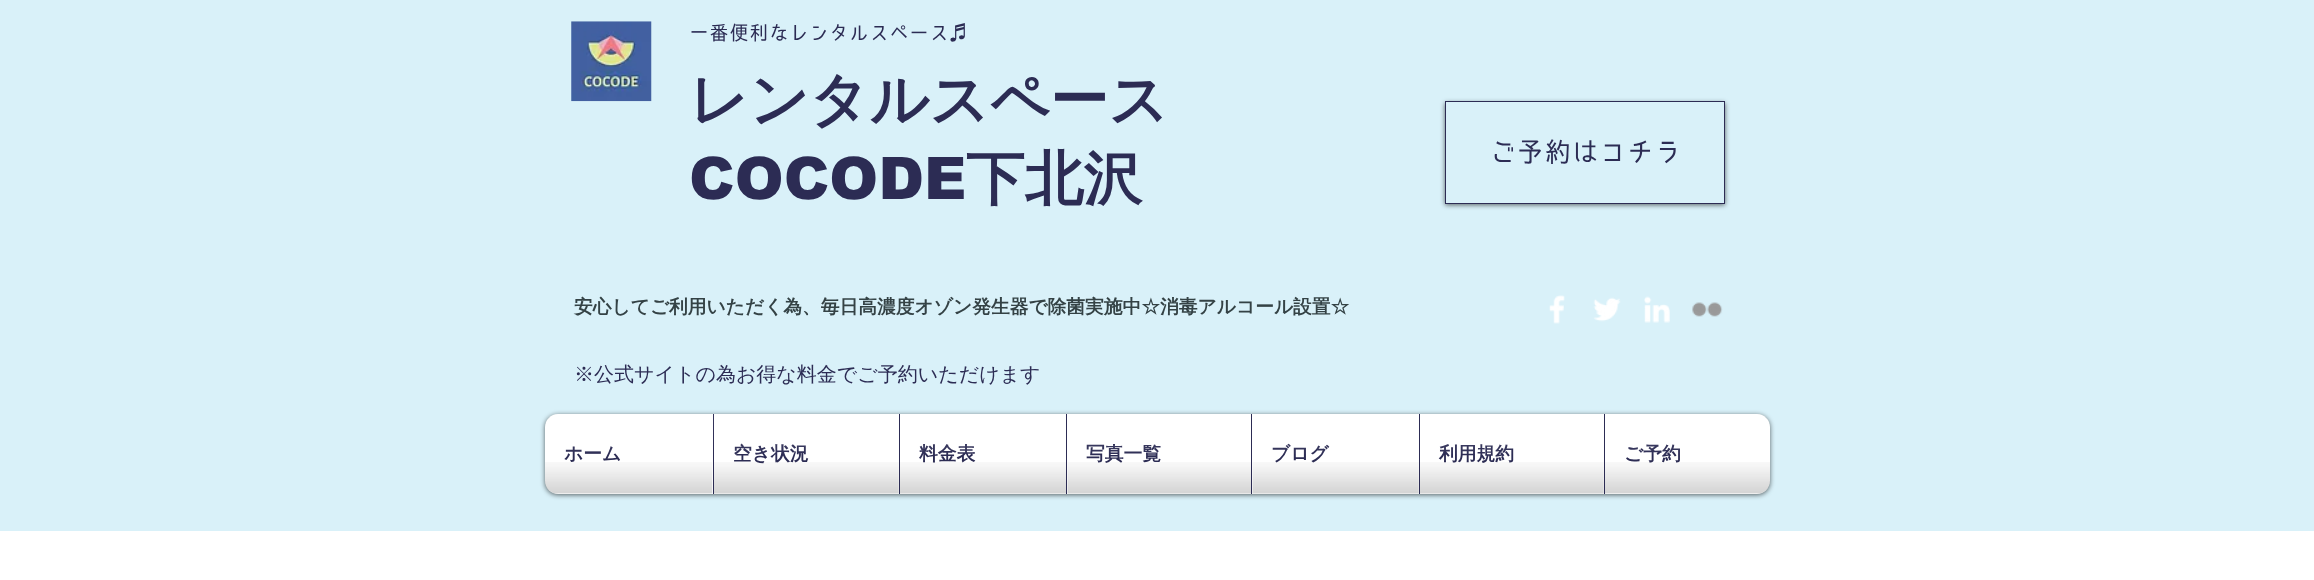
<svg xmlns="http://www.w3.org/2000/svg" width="2314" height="580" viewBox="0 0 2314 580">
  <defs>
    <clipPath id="clip1"><path d="M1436 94H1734V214H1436ZM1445 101H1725V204H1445Z" clip-rule="evenodd"/></clipPath>
  </defs>
  <rect width="100%" height="100%" fill="rgb(255,255,255)"/>
  <rect x="0" y="0" width="2314" height="531" fill="rgb(217,241,249)"/>
  <image x="571" y="21" width="81" height="81" href="pic1.png"/>
  <text x="689" y="40" font-family="'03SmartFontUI'" font-size="20" fill="rgb(44,44,84)">一番便利なレンタルスペース♬</text>
  <text x="689" y="120" font-family="WenQuanYi Zen Hei" font-size="58.75" font-weight="bold" fill="rgb(44,44,84)">レンタルスペース</text>
  <text x="689" y="199" font-family="arial" font-size="58.75" font-weight="900" fill="rgb(44,44,84)">COCODE</text>
  <text x="966" y="199" font-family="WenQuanYi Zen Hei" font-size="58.75" font-weight="bold" fill="rgb(44,44,84)">下北沢</text>
  <g clip-path="url(#clip1)">
    <rect x="1445" y="103" width="280" height="102" fill="rgba(0,0,0,0.6)" filter="blur(2.5px)"/>
  </g>
  <rect x="1445.5" y="101.5" width="279" height="102" fill="none" stroke="rgb(44,44,84)"/>
  <text x="1489" y="162" font-family="'03SmartFontUI'" font-size="27.5" fill="rgb(44,44,84)">ご予約はコチラ</text>
  <text x="574" y="313" font-family="WenQuanYi Zen Hei" font-size="18.75" font-weight="bold" fill="rgb(52,66,69)">安心してご利用いただく為、毎日高濃度オゾン発生器で除菌実施中☆消毒アルコール設置☆</text>
  <image x="1549" y="295" width="16" height="29" href="pic2.png"/>
  <image x="1593" y="297" width="28" height="25" href="pic3.png"/>
  <image x="1644" y="296" width="26" height="27" href="pic4.png"/>
  <image x="1692" y="302" width="31" height="15" href="pic5.png"/>
  <text x="574" y="381" font-family="WenQuanYi Zen Hei" font-size="20" font-weight="500" fill="rgb(44,44,84)">※公式サイトの為お得な料金でご予約いただけます</text>
  <rect x="545" y="415" width="1225" height="80" rx="13" fill="rgba(0,0,0,0.6)" filter="blur(2.5px)"/>
  <image x="545" y="414" width="1225" height="9" href="pic6.png"/>
  <image x="545" y="481" width="1225" height="13" href="pic7.png"/>
  <path d="M558 414H713V494H558C551 494 545 488 545 481V427C545 420 551 414 558 414Z" fill="rgb(255,255,255)"/>
  <text x="564" y="460" font-family="WenQuanYi Zen Hei" font-size="18.75" font-weight="bold" fill="rgb(44,44,84)">ホーム</text>
  <image x="566" y="447" width="46" height="7" href="pic8.png"/>
  <image x="545" y="462" width="168" height="32" href="pic9.png"/>
  <rect x="714" y="414" width="185" height="80" fill="rgb(255,255,255)"/>
  <rect x="713" y="414" width="1" height="80" fill="rgb(44,44,84)"/>
  <text x="733" y="460" font-family="WenQuanYi Zen Hei" font-size="18.75" font-weight="bold" fill="rgb(44,44,84)">空き状況</text>
  <image x="713" y="414" width="92" height="40" href="pic10.png"/>
  <image x="714" y="462" width="185" height="32" href="pic11.png"/>
  <rect x="900" y="414" width="166" height="80" fill="rgb(255,255,255)"/>
  <rect x="899" y="414" width="1" height="80" fill="rgb(44,44,84)"/>
  <text x="919" y="460" font-family="WenQuanYi Zen Hei" font-size="18.75" font-weight="bold" fill="rgb(44,44,84)">料金表</text>
  <image x="920" y="444" width="53" height="10" href="pic12.png"/>
  <image x="900" y="462" width="166" height="32" href="pic13.png"/>
  <rect x="1067" y="414" width="184" height="80" fill="rgb(255,255,255)"/>
  <rect x="1066" y="414" width="1" height="80" fill="rgb(44,44,84)"/>
  <text x="1086" y="460" font-family="WenQuanYi Zen Hei" font-size="18.75" font-weight="bold" fill="rgb(44,44,84)">写真一覧</text>
  <image x="1087" y="445" width="73" height="9" href="pic14.png"/>
  <image x="1067" y="462" width="184" height="32" href="pic15.png"/>
  <rect x="1252" y="414" width="167" height="80" fill="rgb(255,255,255)"/>
  <rect x="1251" y="414" width="1" height="80" fill="rgb(44,44,84)"/>
  <text x="1271" y="460" font-family="WenQuanYi Zen Hei" font-size="18.75" font-weight="bold" fill="rgb(44,44,84)">ブログ</text>
  <image x="1273" y="444" width="55" height="10" href="pic16.png"/>
  <image x="1252" y="462" width="167" height="32" href="pic17.png"/>
  <rect x="1420" y="414" width="184" height="80" fill="rgb(255,255,255)"/>
  <rect x="1419" y="414" width="1" height="80" fill="rgb(44,44,84)"/>
  <text x="1439" y="460" font-family="WenQuanYi Zen Hei" font-size="18.75" font-weight="bold" fill="rgb(44,44,84)">利用規約</text>
  <image x="1440" y="445" width="72" height="9" href="pic18.png"/>
  <image x="1420" y="462" width="184" height="32" href="pic19.png"/>
  <path d="M1604 414H1757C1764 414 1770 420 1770 427V481C1770 488 1764 494 1757 494H1604Z" fill="rgb(255,255,255)"/>
  <rect x="1604" y="414" width="1" height="80" fill="rgb(44,44,84)"/>
  <text x="1624" y="460" font-family="WenQuanYi Zen Hei" font-size="18.75" font-weight="bold" fill="rgb(44,44,84)">ご予約</text>
  <image x="1628" y="445" width="51" height="9" href="pic20.png"/>
  <image x="1605" y="462" width="165" height="32" href="pic21.png"/>
</svg>
